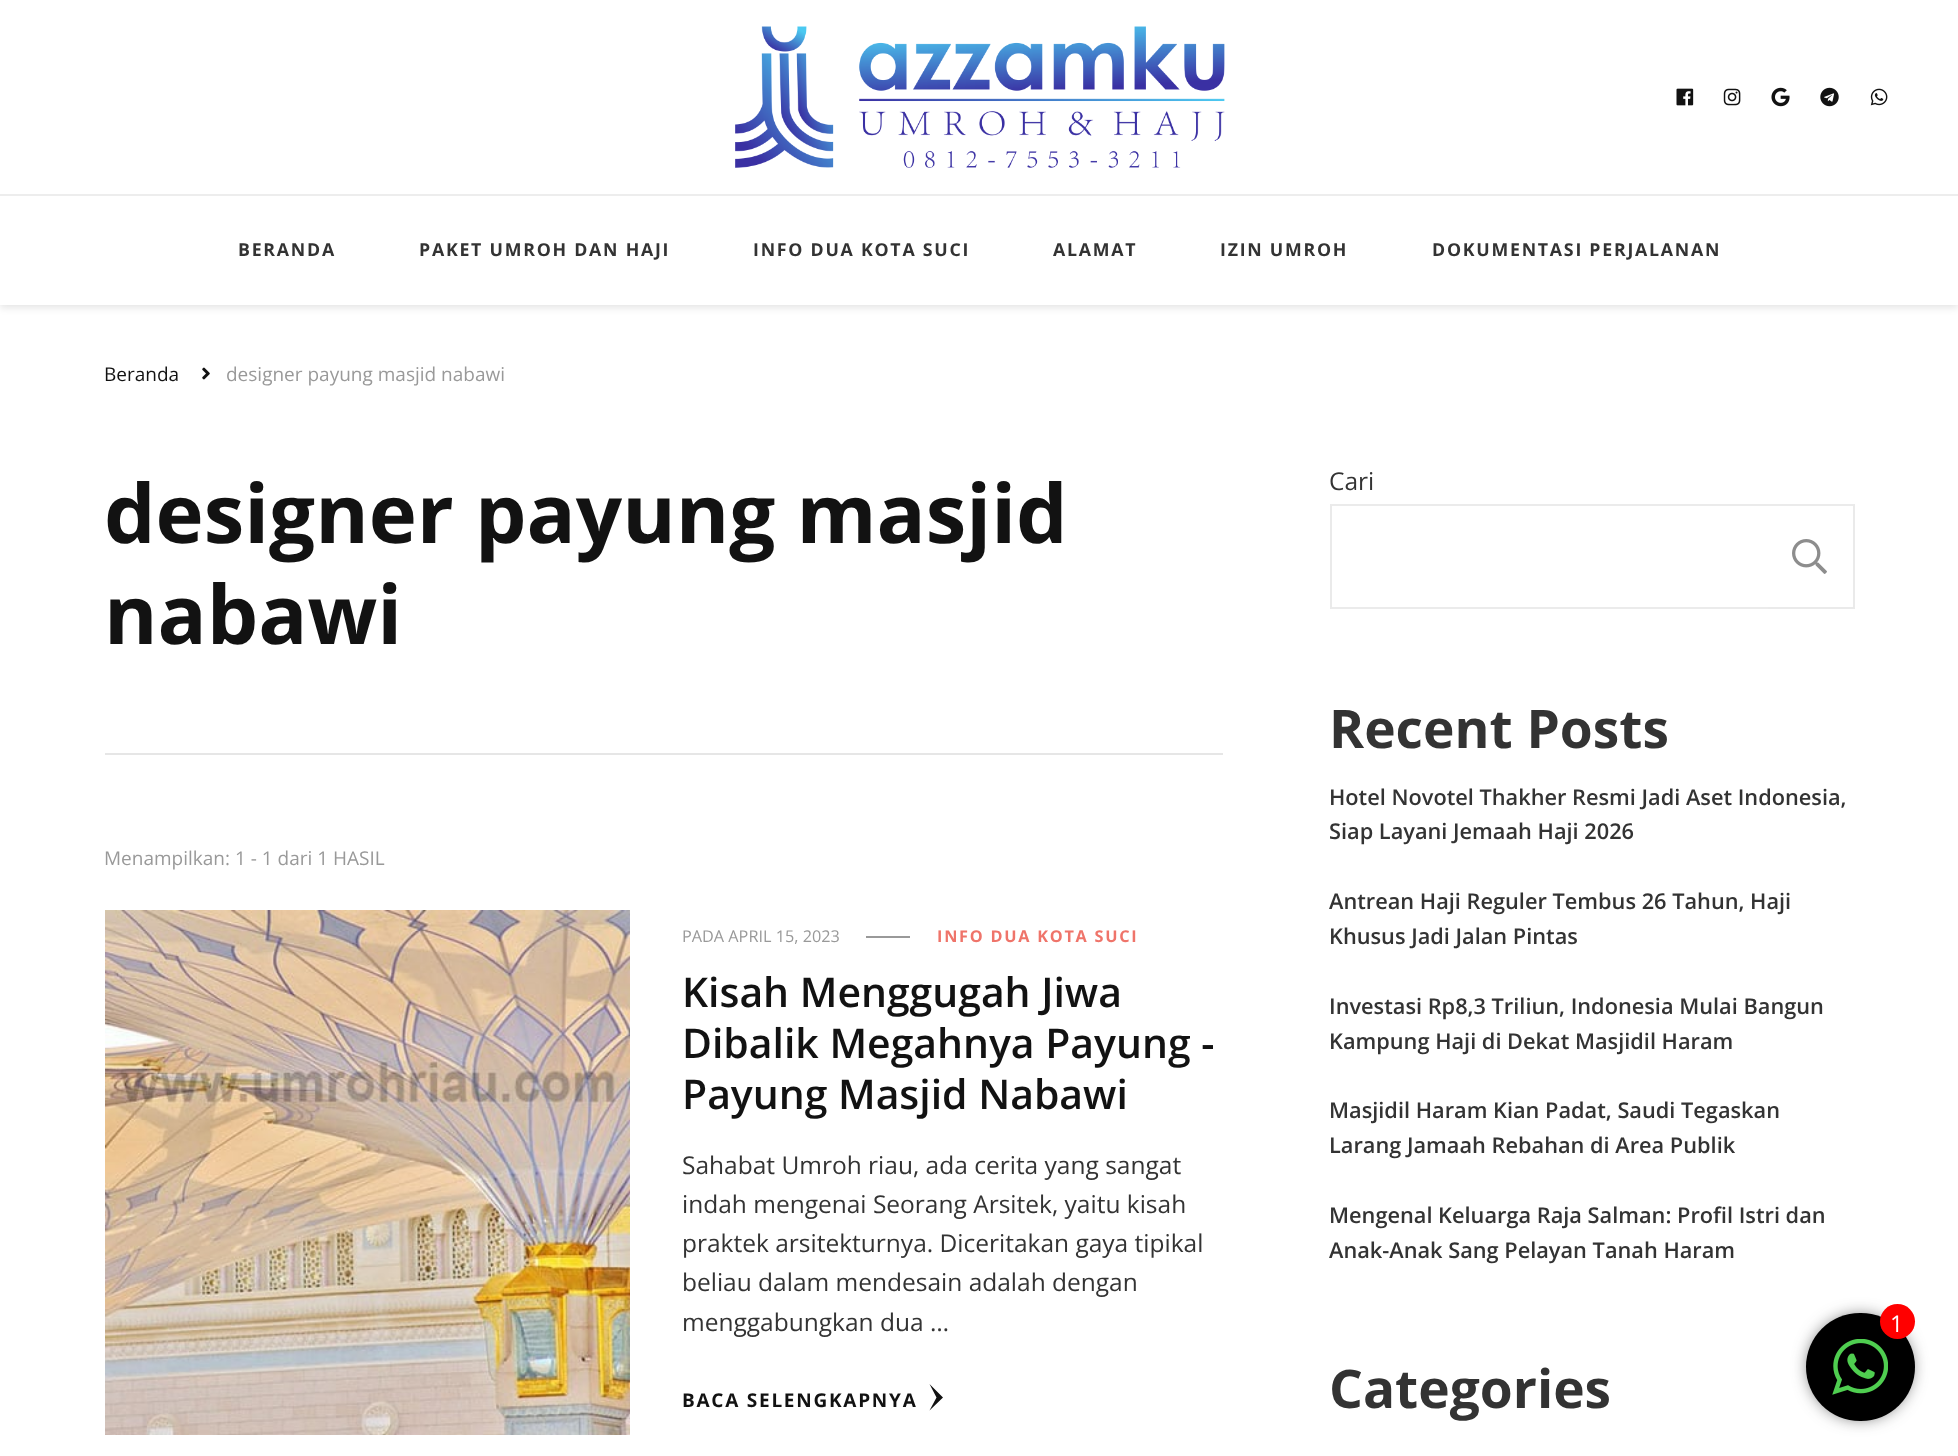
<svg xmlns="http://www.w3.org/2000/svg" width="1958" height="1456" viewBox="0 0 1958 1456">
  <defs>
    <clipPath id="clip1"><path d="M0 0H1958V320H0ZM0 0H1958V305H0Z" clip-rule="evenodd"/></clipPath>
  </defs>
  <rect width="100%" height="100%" fill="rgb(255,255,255)"/>
  <g clip-path="url(#clip1)">
    <rect x="0" y="4" width="1958" height="304" fill="rgba(0,0,0,0.1)" filter="blur(3.5px)"/>
  </g>
  <image x="735" y="26" width="490" height="142" href="pic1.png"/>
  <image x="1676" y="88" width="18" height="18" href="pic2.png"/>
  <image x="1723" y="88" width="18" height="18" href="pic3.png"/>
  <image x="1771" y="87" width="19" height="20" href="pic4.png"/>
  <image x="1820" y="87" width="19" height="20" href="pic5.png"/>
  <image x="1870" y="88" width="18" height="18" href="pic6.png"/>
  <rect x="0" y="194" width="1958" height="2" fill="rgb(237,237,237)"/>
  <g font-family="Open Sans" font-size="17.75" font-weight="bold" letter-spacing="1.75" fill="rgb(51,51,51)">
    <text x="238" y="256">BERANDA</text>
    <text x="419" y="256">PAKET UMROH DAN HAJI</text>
    <text x="753" y="256">INFO DUA KOTA SUCI</text>
    <text x="1053" y="256">ALAMAT</text>
    <text x="1220" y="256">IZIN UMROH</text>
    <text x="1432" y="256">DOKUMENTASI PERJALANAN</text>
  </g>
  <text x="104" y="381" font-family="Open Sans" font-size="19" fill="rgb(18,18,18)">Beranda</text>
  <image x="202" y="367" width="8" height="13" href="pic7.png"/>
  <text x="226" y="381" font-family="Open Sans" font-size="19" fill="rgb(153,153,153)">designer payung masjid nabawi</text>
  <rect x="105" y="753" width="1118" height="2" fill="rgb(230,230,230)"/>
  <g font-family="Open Sans" font-size="81.5" font-weight="bold" fill="rgb(18,18,18)">
    <text>
      <tspan x="104" y="543">designer payung masjid</tspan>
      <tspan x="104" y="644">nabawi</tspan>
    </text>
  </g>
  <text x="104" y="865" font-family="Open Sans" font-size="19" fill="rgb(153,153,153)">Menampilkan: 1 - 1 dari 1 HASIL</text>
  <image x="105" y="910" width="525" height="525" href="pic8.png"/>
  <text x="682" y="942" font-family="Open Sans" font-size="16.25" fill="rgb(153,153,153)">PADA APRIL 15, 2023</text>
  <rect x="866" y="936" width="44" height="2" fill="rgb(153,153,153)"/>
  <text x="937" y="942" font-family="Open Sans" font-size="16.25" font-weight="bold" letter-spacing="1.75" fill="rgb(239,116,106)">INFO DUA KOTA SUCI</text>
  <g font-family="Open Sans" font-size="40.9" font-weight="600" fill="rgb(18,18,18)">
    <text>
      <tspan x="682" y="1007">Kisah Menggugah Jiwa</tspan>
      <tspan x="682" y="1058">Dibalik Megahnya Payung -</tspan>
      <tspan x="682" y="1109">Payung Masjid Nabawi</tspan>
    </text>
  </g>
  <g font-family="Open Sans" font-size="24.5" fill="rgb(51,51,51)">
    <text>
      <tspan x="682" y="1174">Sahabat Umroh riau, ada cerita yang sangat</tspan>
      <tspan x="682" y="1213">indah mengenai Seorang Arsitek, yaitu kisah</tspan>
      <tspan x="682" y="1252">praktek arsitekturnya. Diceritakan gaya tipikal</tspan>
      <tspan x="682" y="1291">beliau dalam mendesain adalah dengan</tspan>
      <tspan x="682" y="1331">menggabungkan dua …</tspan>
    </text>
  </g>
  <text x="682" y="1407" font-family="Open Sans" font-size="19" font-weight="bold" letter-spacing="1.75" fill="rgb(18,18,18)">BACA SELENGKAPNYA</text>
  <path d="M943 1397.5L929.5 1410.5L936.5 1397.5L929.5 1384Z" fill="rgb(18,18,18)"/>
  <text x="1329" y="490" font-family="Open Sans" font-size="24.5" fill="rgb(51,51,51)">Cari</text>
  <path d="M1330 504H1768V506H1332Z" fill="rgb(235,235,235)"/>
  <path d="M1768 609H1330L1332 607H1768Z" fill="rgb(235,235,235)"/>
  <path d="M1330 609V504L1332 506V607Z" fill="rgba(51,51,51,0.1)"/>
  <path d="M1768 504H1855L1853 506H1768Z" fill="rgb(235,235,235)"/>
  <path d="M1855 504V609L1853 607V506Z" fill="rgba(51,51,51,0.1)"/>
  <path d="M1855 609H1768V607H1853Z" fill="rgba(51,51,51,0.1)"/>
  <image x="1792" y="539" width="35" height="35" href="pic9.png"/>
  <text x="1329" y="748" font-family="Open Sans" font-size="53.25" font-weight="bold" fill="rgb(51,51,51)">Recent Posts</text>
  <g font-family="Open Sans" font-size="21.75" font-weight="600" fill="rgb(51,51,51)">
    <text>
      <tspan x="1329" y="805">Hotel Novotel Thakher Resmi Jadi Aset Indonesia,</tspan>
      <tspan x="1329" y="839">Siap Layani Jemaah Haji 2026</tspan>
    </text>
    <text>
      <tspan x="1329" y="909">Antrean Haji Reguler Tembus 26 Tahun, Haji</tspan>
      <tspan x="1329" y="944">Khusus Jadi Jalan Pintas</tspan>
    </text>
    <text>
      <tspan x="1329" y="1014">Investasi Rp8,3 Triliun, Indonesia Mulai Bangun</tspan>
      <tspan x="1329" y="1049">Kampung Haji di Dekat Masjidil Haram</tspan>
    </text>
    <text>
      <tspan x="1329" y="1118">Masjidil Haram Kian Padat, Saudi Tegaskan</tspan>
      <tspan x="1329" y="1153">Larang Jamaah Rebahan di Area Publik</tspan>
    </text>
    <text>
      <tspan x="1329" y="1223">Mengenal Keluarga Raja Salman: Profil Istri dan</tspan>
      <tspan x="1329" y="1258">Anak-Anak Sang Pelayan Tanah Haram</tspan>
    </text>
  </g>
  <text x="1329" y="1408" font-family="Open Sans" font-size="53.25" font-weight="bold" fill="rgb(51,51,51)">Categories</text>
  <rect x="1811" y="1318" width="98" height="98" rx="49" fill="rgb(51,51,51)" filter="blur(9px)"/>
  <rect x="1806" y="1313" width="109" height="108" rx="54" fill="rgb(0,0,0)"/>
  <circle cx="1897.5" cy="1321.5" r="17.5" fill="rgb(255,0,0)"/>
  <text x="1890" y="1332" font-family="Open Sans" font-size="23" fill="rgb(255,255,255)">1</text>
  <image x="1832" y="1339" width="56" height="56" href="pic10.png"/>
</svg>
